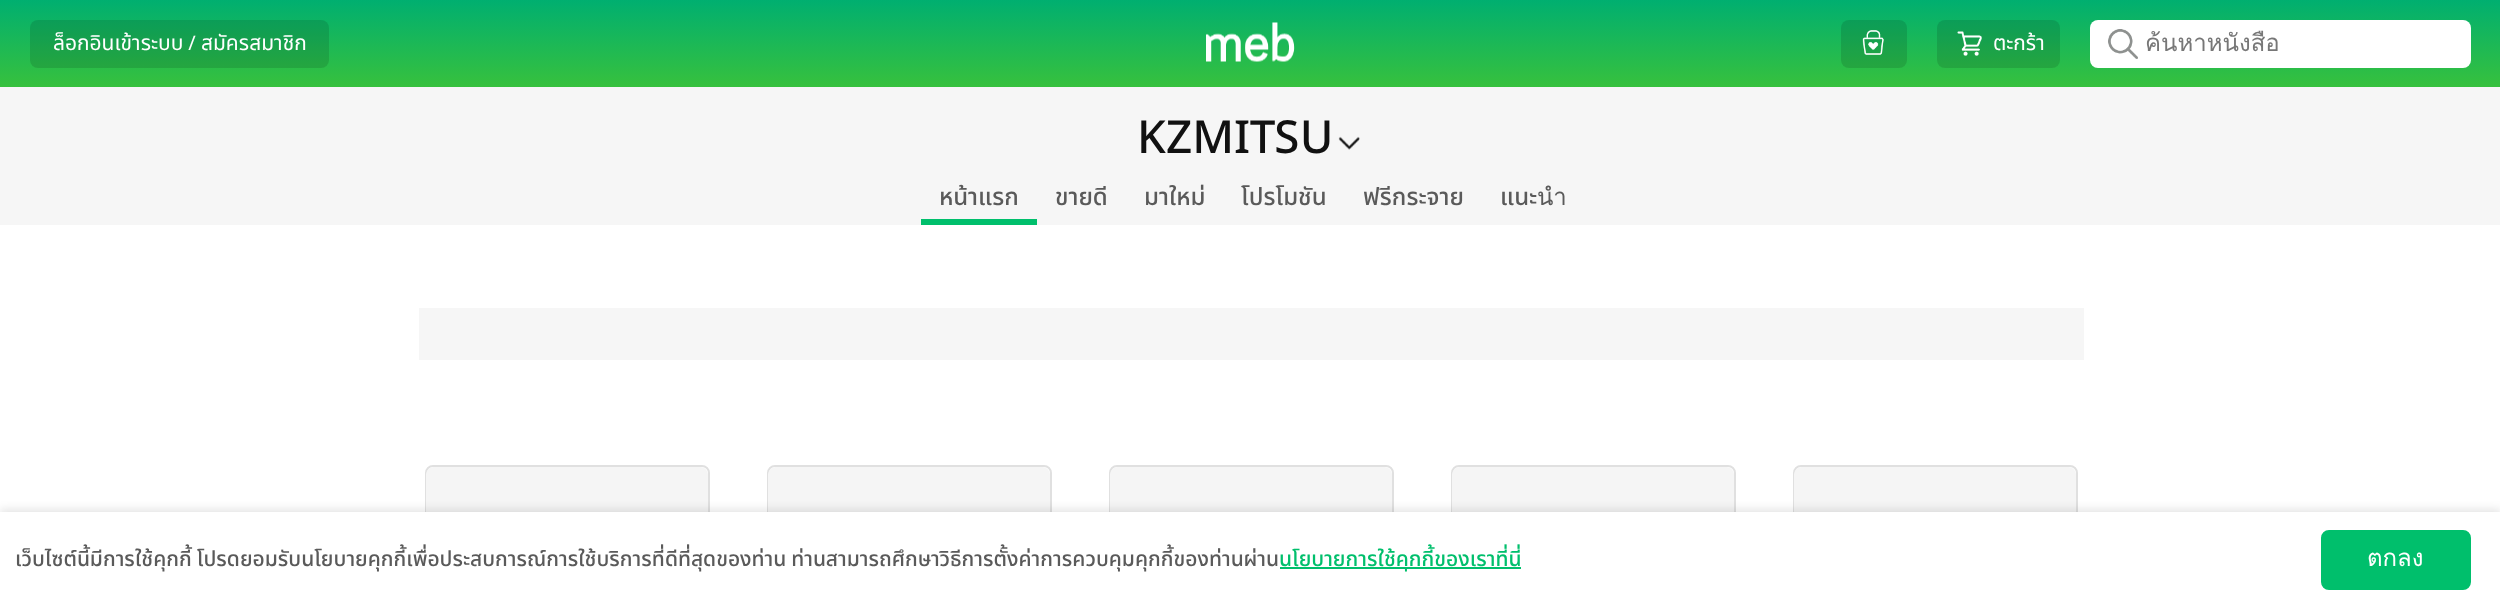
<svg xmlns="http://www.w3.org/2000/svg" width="2500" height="605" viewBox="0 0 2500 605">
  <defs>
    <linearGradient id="g1" gradientUnits="userSpaceOnUse" x1="1250" y1="0" x2="1250" y2="87"><stop offset="0" stop-color="rgb(0,175,112)"/><stop offset="1" stop-color="rgb(55,193,61)"/></linearGradient>
    <clipPath id="clip1"><rect x="2145" y="24" width="311" height="38"/></clipPath>
  </defs>
  <rect width="100%" height="100%" fill="rgb(255,255,255)"/>
  <rect x="0" y="0" width="2500" height="87" fill="url(#g1)"/>
  <rect x="30" y="20" width="299" height="48" rx="8" fill="rgba(0,0,0,0.12)"/>
  <text x="53" y="50" font-family="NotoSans" font-size="21" fill="rgb(255,255,255)">ล็อกอินเข้าระบบ / สมัครสมาชิก</text>
  <image x="1206" y="22" width="89" height="40" href="pic1.png"/>
  <rect x="1841" y="20" width="66" height="48" rx="8" fill="rgba(0,0,0,0.12)"/>
  <image x="1862" y="30" width="22" height="25" href="pic2.png"/>
  <rect x="1937" y="20" width="123" height="48" rx="8" fill="rgba(0,0,0,0.12)"/>
  <image x="1957" y="31" width="25" height="25" href="pic3.png"/>
  <text x="1993" y="50" font-family="NotoSans" font-size="21" fill="rgb(255,255,255)">ตะกร้า</text>
  <rect x="2090" y="20" width="381" height="48" rx="8" fill="rgb(255,255,255)"/>
  <image x="2108" y="29" width="30" height="30" href="pic4.png"/>
  <g clip-path="url(#clip1)">
    <text x="2145" y="51" font-family="Loma" font-size="24" fill="rgb(119,119,119)">ค้นหาหนังสือ</text>
  </g>
  <rect x="0" y="87" width="2500" height="138" fill="rgb(246,246,246)"/>
  <text x="1137" y="153" font-family="NotoSans" font-size="48" font-weight="500" fill="rgb(17,17,17)">KZMITSU</text>
  <image x="1338" y="136" width="22" height="14" href="pic5.png"/>
  <rect x="921" y="219" width="116" height="6" fill="rgb(0,191,108)"/>
  <g font-family="NotoSans" font-size="24" font-weight="500" fill="rgb(90,90,90)">
    <text x="939" y="205">หน้าแรก</text>
    <text x="1055" y="205">ขายดี</text>
    <text x="1144" y="205">มาใหม่</text>
    <text x="1241" y="205">โปรโมชัน</text>
    <text x="1363" y="205">ฟรีกระจาย</text>
    <text x="1500" y="205">แนะนำ</text>
  </g>
  <rect x="419" y="308" width="1665" height="52" fill="rgb(246,246,246)"/>
  <rect x="426" y="466" width="283" height="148" rx="7" fill="none" stroke="rgb(224,224,224)" stroke-width="2"/>
  <path d="M434 467H700C704.5 467 708 470.5 708 475V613H426V475C426 470.5 429.5 467 434 467Z" fill="rgb(245,245,245)"/>
  <rect x="768" y="466" width="283" height="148" rx="7" fill="none" stroke="rgb(224,224,224)" stroke-width="2"/>
  <path d="M776 467H1042C1046.5 467 1050 470.5 1050 475V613H768V475C768 470.5 771.5 467 776 467Z" fill="rgb(245,245,245)"/>
  <rect x="1110" y="466" width="283" height="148" rx="7" fill="none" stroke="rgb(224,224,224)" stroke-width="2"/>
  <path d="M1118 467H1384C1388.5 467 1392 470.5 1392 475V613H1110V475C1110 470.5 1113.5 467 1118 467Z" fill="rgb(245,245,245)"/>
  <rect x="1452" y="466" width="283" height="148" rx="7" fill="none" stroke="rgb(224,224,224)" stroke-width="2"/>
  <path d="M1460 467H1726C1730.5 467 1734 470.5 1734 475V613H1452V475C1452 470.5 1455.5 467 1460 467Z" fill="rgb(245,245,245)"/>
  <rect x="1794" y="466" width="283" height="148" rx="7" fill="none" stroke="rgb(224,224,224)" stroke-width="2"/>
  <path d="M1802 467H2068C2072.5 467 2076 470.5 2076 475V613H1794V475C1794 470.5 1797.5 467 1802 467Z" fill="rgb(245,245,245)"/>
  <rect x="0" y="509" width="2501" height="94" fill="rgba(0,0,0,0.1)" filter="blur(4px)"/>
  <rect x="0" y="512" width="2500" height="93" fill="rgb(255,255,255)"/>
  <text x="15" y="566" font-family="NotoSans" font-size="21" font-weight="500" fill="rgb(90,90,90)">เว็บไซต์นี้มีการใช้คุกกี้ โปรดยอมรับนโยบายคุกกี้เพื่อประสบการณ์การใช้บริการที่ดีที่สุดของท่าน ท่านสามารถศึกษาวิธีการตั้งค่าการควบคุมคุกกี้ของท่านผ่าน</text>
  <rect x="1280" y="567" width="241" height="2" fill="rgb(0,191,108)"/>
  <text x="1279" y="566" font-family="NotoSans" font-size="21" font-weight="500" fill="rgb(0,191,108)">นโยบายการใช้คุกกี้ของเราที่นี่</text>
  <rect x="2322" y="531" width="148" height="58" rx="7" fill="rgb(0,191,108)" stroke="rgb(0,191,108)" stroke-width="2"/>
  <text x="2367" y="566" font-family="Loma" font-size="24" fill="rgb(255,255,255)">ตกลง</text>
</svg>
